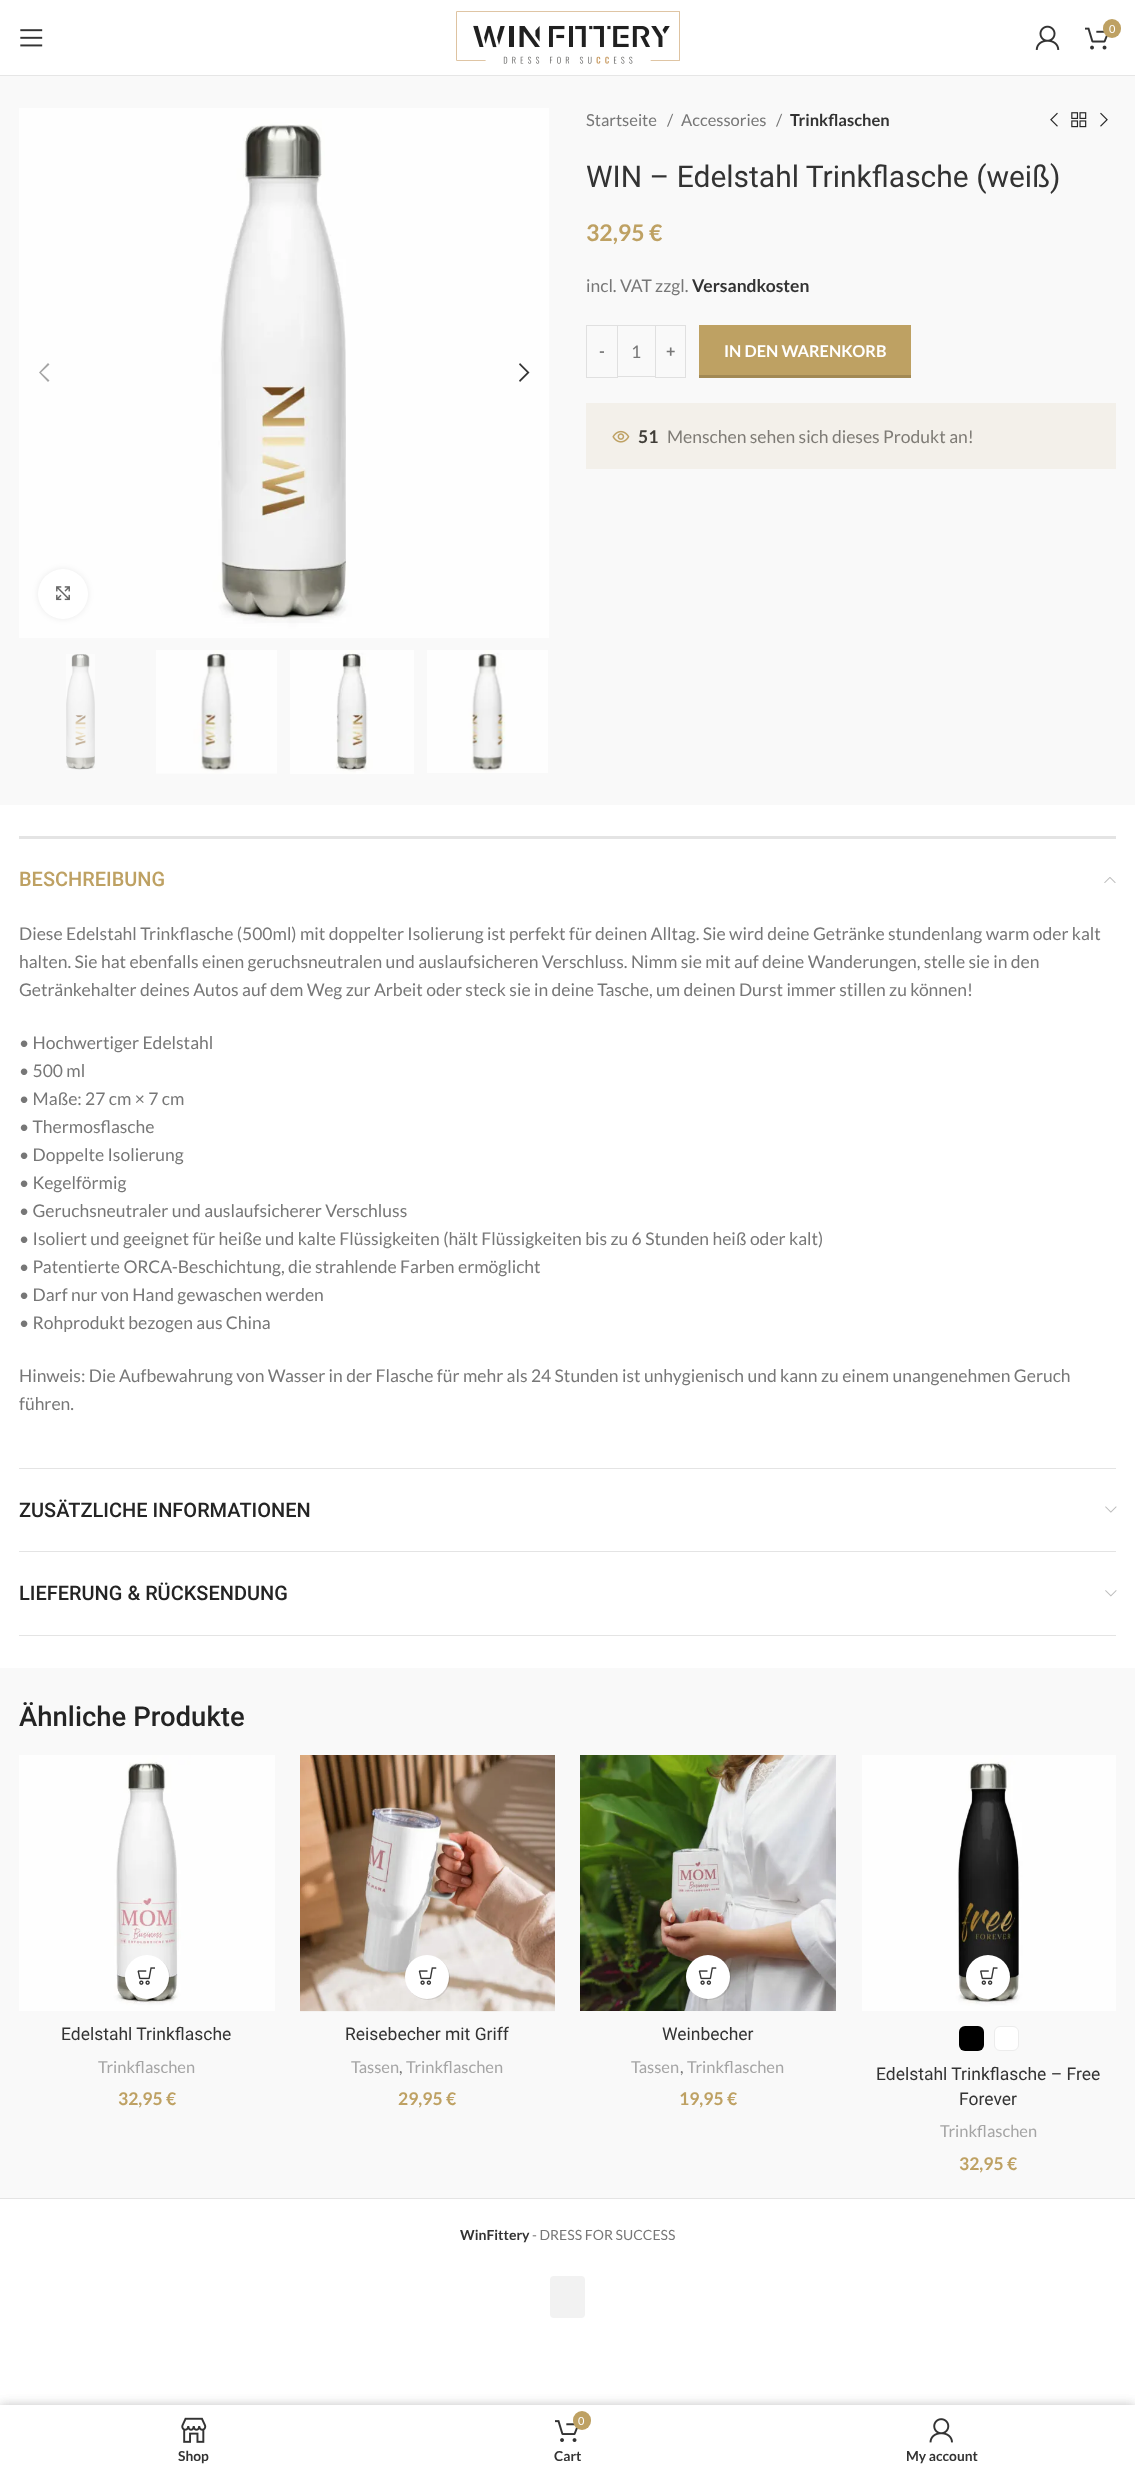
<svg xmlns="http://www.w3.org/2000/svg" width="1135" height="2473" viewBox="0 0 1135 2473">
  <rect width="100%" height="100%" fill="rgb(255,255,255)"/>
  <rect x="0" y="75" width="1135" height="1" fill="rgb(230,230,230)"/>
  <image x="20" y="29" width="23" height="18" href="pic1.png"/>
  <image x="456" y="11" width="224" height="53" href="pic2.png"/>
  <image x="1035" y="25" width="25" height="25" href="pic3.png"/>
  <image x="1085" y="27" width="23" height="23" href="pic4.png"/>
  <rect x="1103" y="19" width="18" height="19" rx="9" fill="rgb(190,161,99)"/>
  <text x="1109" y="33" font-family="Lato" font-size="11" fill="rgb(255,255,255)">0</text>
  <rect x="0" y="76" width="1135" height="2122" fill="rgb(249,249,249)"/>
  <rect x="586" y="403" width="530" height="66" fill="rgb(243,240,234)"/>
  <image x="19" y="108" width="530" height="530" href="pic5.png"/>
  <path d="M49.5 364.5L48 363L39 372.5L48 382L49.5 380.5L41 372.5Z" fill="rgb(165,165,165)"/>
  <path d="M519 364.5L527 372.5L519 380.5L520 382L529.5 372.5L520 363Z" fill="rgb(51,51,51)"/>
  <rect x="38" y="569" width="50" height="50" rx="25" fill="rgba(0,0,0,0.08)" filter="blur(3px)"/>
  <circle cx="63" cy="594" r="25" fill="rgb(255,255,255)"/>
  <image x="56" y="586" width="14" height="15" href="pic6.png"/>
  <image x="66" y="654" width="29" height="116" href="pic7.png"/>
  <image x="156" y="650" width="121" height="124" href="pic8.png"/>
  <image x="290" y="650" width="124" height="124" href="pic9.png"/>
  <image x="427" y="650" width="121" height="123" href="pic10.png"/>
  <g font-family="Lato" font-size="16.5" fill="rgb(119,119,119)">
    <text x="586" y="126">Startseite</text>
    <text x="667" y="126">/</text>
    <text x="681" y="126">Accessories</text>
    <text x="776" y="126">/</text>
  </g>
  <text x="790" y="126" font-family="Lato" font-size="16.5" font-weight="bold" fill="rgb(51,51,51)">Trinkflaschen</text>
  <image x="1050" y="112" width="8" height="15" href="pic11.png"/>
  <image x="1071" y="112" width="16" height="16" href="pic12.png"/>
  <image x="1100" y="112" width="8" height="15" href="pic13.png"/>
  <text x="586" y="187" font-family="Roboto" font-size="30" fill="rgb(51,51,51)">WIN – Edelstahl Trinkflasche (weiß)</text>
  <text x="586" y="241" font-family="Lato" font-size="23" font-weight="bold" fill="rgb(190,161,99)">32,95 €</text>
  <text x="586" y="292" font-family="Lato" font-size="17.5" fill="rgb(119,119,119)">incl. VAT zzgl.</text>
  <text x="692" y="292" font-family="Lato" font-size="17.5" font-weight="bold" fill="rgb(51,51,51)">Versandkosten</text>
  <rect x="586.5" y="325.5" width="31" height="52" fill="none" stroke="rgb(224,224,224)"/>
  <text x="599" y="357" font-family="Lato" font-size="16.25" font-weight="bold" fill="rgb(119,119,119)">-</text>
  <rect x="618" y="325" width="37" height="1" fill="rgb(224,224,224)"/>
  <rect x="618" y="376" width="37" height="1" fill="rgb(224,224,224)"/>
  <text x="631" y="358" font-family="Lato" font-size="17.5" fill="rgb(119,119,119)">1</text>
  <rect x="655.5" y="325.5" width="30" height="52" fill="none" stroke="rgb(224,224,224)"/>
  <text x="666" y="357" font-family="Lato" font-size="16.25" font-weight="bold" fill="rgb(119,119,119)">+</text>
  <rect x="699" y="325" width="212" height="50" fill="rgb(190,161,99)"/>
  <rect x="699" y="375" width="212" height="3" fill="rgb(162,137,84)"/>
  <text x="724" y="357" font-family="Lato" font-size="16.25" font-weight="bold" fill="rgb(255,255,255)">IN DEN WARENKORB</text>
  <image x="612" y="430" width="18" height="13" href="pic14.png"/>
  <text x="638" y="443" font-family="Lato" font-size="17.5" font-weight="bold" fill="rgb(65,62,56)">51</text>
  <text x="667" y="443" font-family="Lato" font-size="17.5" fill="rgb(126,123,117)">Menschen sehen sich dieses Produkt an!</text>
  <rect x="0" y="805" width="1135" height="863" fill="rgb(255,255,255)"/>
  <rect x="19" y="836" width="1097" height="3" fill="rgb(228,228,228)"/>
  <rect x="19" y="1468" width="1097" height="1" fill="rgb(228,228,228)"/>
  <text x="19" y="886" font-family="Roboto" font-size="20" font-weight="500" fill="rgb(190,161,99)">BESCHREIBUNG</text>
  <image x="1104" y="877" width="12" height="6" href="pic15.png"/>
  <g font-family="Lato" font-size="17.5" fill="rgb(119,119,119)">
    <text>
      <tspan x="19" y="940">Diese Edelstahl Trinkflasche (500ml) mit doppelter Isolierung ist perfekt für deinen Alltag. Sie wird deine Getränke stundenlang warm oder kalt</tspan>
      <tspan x="19" y="968">halten. Sie hat ebenfalls einen geruchsneutralen und auslaufsicheren Verschluss. Nimm sie mit auf deine Wanderungen, stelle sie in den</tspan>
      <tspan x="19" y="996">Getränkehalter deines Autos auf dem Weg zur Arbeit oder steck sie in deine Tasche, um deinen Durst immer stillen zu können!</tspan>
    </text>
    <text>
      <tspan x="19" y="1049">• Hochwertiger Edelstahl</tspan>
      <tspan x="19" y="1077">• 500 ml</tspan>
      <tspan x="19" y="1105">• Maße: 27 cm × 7 cm</tspan>
      <tspan x="19" y="1133">• Thermosflasche</tspan>
      <tspan x="19" y="1161">• Doppelte Isolierung</tspan>
      <tspan x="19" y="1189">• Kegelförmig</tspan>
      <tspan x="19" y="1217">• Geruchsneutraler und auslaufsicherer Verschluss</tspan>
      <tspan x="19" y="1245">• Isoliert und geeignet für heiße und kalte Flüssigkeiten (hält Flüssigkeiten bis zu 6 Stunden heiß oder kalt)</tspan>
      <tspan x="19" y="1273">• Patentierte ORCA-Beschichtung, die strahlende Farben ermöglicht</tspan>
      <tspan x="19" y="1301">• Darf nur von Hand gewaschen werden</tspan>
      <tspan x="19" y="1329">• Rohprodukt bezogen aus China</tspan>
    </text>
    <text>
      <tspan x="19" y="1382">Hinweis: Die Aufbewahrung von Wasser in der Flasche für mehr als 24 Stunden ist unhygienisch und kann zu einem unangenehmen Geruch</tspan>
      <tspan x="19" y="1410">führen.</tspan>
    </text>
  </g>
  <rect x="19" y="1551" width="1097" height="1" fill="rgb(228,228,228)"/>
  <text x="19" y="1517" font-family="Roboto" font-size="20" font-weight="500" fill="rgb(36,36,36)">ZUSÄTZLICHE INFORMATIONEN</text>
  <image x="1105" y="1506" width="12" height="7" href="pic16.png"/>
  <rect x="19" y="1635" width="1097" height="1" fill="rgb(228,228,228)"/>
  <text x="19" y="1600" font-family="Roboto" font-size="20" font-weight="500" fill="rgb(36,36,36)">LIEFERUNG &amp; RÜCKSENDUNG</text>
  <image x="1105" y="1590" width="12" height="7" href="pic17.png"/>
  <text x="19" y="1726" font-family="Roboto" font-size="27.5" font-weight="500" fill="rgb(36,36,36)">Ähnliche Produkte</text>
  <image x="19" y="1755" width="256" height="256" href="pic18.png"/>
  <rect x="126" y="1956" width="44" height="44" rx="22" fill="rgba(0,0,0,0.1)" filter="blur(0.5px)"/>
  <circle cx="147" cy="1977" r="22" fill="rgb(255,255,255)"/>
  <image x="137" y="1967" width="18" height="18" href="pic19.png"/>
  <text x="61" y="2040" font-family="Roboto" font-size="17.5" fill="rgb(51,51,51)">Edelstahl Trinkflasche</text>
  <text x="98" y="2073" font-family="Lato" font-size="16.5" fill="rgb(165,165,165)">Trinkflaschen</text>
  <text x="118" y="2105" font-family="Lato" font-size="17.5" font-weight="bold" fill="rgb(190,161,99)">32,95 €</text>
  <image x="300" y="1755" width="255" height="257" href="pic20.png"/>
  <rect x="406" y="1956" width="44" height="44" rx="22" fill="rgba(0,0,0,0.1)" filter="blur(0.5px)"/>
  <circle cx="427" cy="1977" r="22" fill="rgb(255,255,255)"/>
  <image x="418" y="1967" width="19" height="18" href="pic21.png"/>
  <text x="345" y="2040" font-family="Roboto" font-size="17.5" fill="rgb(51,51,51)">Reisebecher mit Griff</text>
  <text x="351" y="2073" font-family="Lato" font-size="16.5" fill="rgb(165,165,165)">Tassen</text>
  <text x="399" y="2073" font-family="Lato" font-size="16.5" fill="rgb(119,119,119)">,</text>
  <text x="406" y="2073" font-family="Lato" font-size="16.5" fill="rgb(165,165,165)">Trinkflaschen</text>
  <text x="398" y="2105" font-family="Lato" font-size="17.5" font-weight="bold" fill="rgb(190,161,99)">29,95 €</text>
  <image x="580" y="1755" width="256" height="256" href="pic22.png"/>
  <rect x="688" y="1956" width="43" height="44" rx="21.5" fill="rgba(0,0,0,0.1)" filter="blur(0.5px)"/>
  <circle cx="708" cy="1977" r="22" fill="rgb(255,255,255)"/>
  <image x="698" y="1967" width="19" height="18" href="pic21.png"/>
  <text x="662" y="2040" font-family="Roboto" font-size="17.5" fill="rgb(51,51,51)">Weinbecher</text>
  <text x="631" y="2073" font-family="Lato" font-size="16.5" fill="rgb(165,165,165)">Tassen</text>
  <text x="680" y="2073" font-family="Lato" font-size="16.5" fill="rgb(119,119,119)">,</text>
  <text x="687" y="2073" font-family="Lato" font-size="16.5" fill="rgb(165,165,165)">Trinkflaschen</text>
  <text x="679" y="2105" font-family="Lato" font-size="17.5" font-weight="bold" fill="rgb(190,161,99)">19,95 €</text>
  <image x="862" y="1755" width="254" height="256" href="pic23.png"/>
  <rect x="968" y="1956" width="43" height="44" rx="21.5" fill="rgba(0,0,0,0.1)" filter="blur(0.5px)"/>
  <circle cx="988" cy="1977" r="22" fill="rgb(255,255,255)"/>
  <image x="980" y="1967" width="18" height="18" href="pic24.png"/>
  <rect x="959" y="2026" width="25" height="25" rx="6" fill="rgb(0,0,0)"/>
  <rect x="994.5" y="2026.5" width="24" height="24" rx="5.5" fill="rgb(255,255,255)" stroke="rgb(236,236,236)"/>
  <g font-family="Roboto" font-size="17.5" fill="rgb(51,51,51)">
    <text x="876" y="2080">Edelstahl Trinkflasche – Free</text>
    <text x="959" y="2105">Forever</text>
  </g>
  <text x="940" y="2137" font-family="Lato" font-size="16.5" fill="rgb(165,165,165)">Trinkflaschen</text>
  <text x="959" y="2170" font-family="Lato" font-size="17.5" font-weight="bold" fill="rgb(190,161,99)">32,95 €</text>
  <rect x="0" y="2198" width="1135" height="1" fill="rgb(228,228,228)"/>
  <text x="460" y="2240" font-family="Lato" font-size="14" font-weight="bold" fill="rgb(51,51,51)">WinFittery</text>
  <text x="532" y="2240" font-family="Lato" font-size="14" fill="rgb(119,119,119)">- DRESS FOR SUCCESS</text>
  <rect x="550" y="2276" width="35" height="42" rx="4" fill="rgb(242,242,242)"/>
  <rect x="0" y="2405" width="1135" height="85" fill="rgba(0,0,0,0.12)" filter="blur(5.5px)"/>
  <rect x="0" y="2405" width="1135" height="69" fill="rgba(0,0,0,0.12)" filter="blur(5.5px)"/>
  <rect x="0" y="2405" width="1135" height="68" fill="rgb(255,255,255)"/>
  <image x="181" y="2417" width="26" height="26" href="pic25.png"/>
  <text x="178" y="2461" font-family="Lato" font-size="13.75" font-weight="bold" fill="rgb(51,51,51)">Shop</text>
  <image x="555" y="2420" width="23" height="22" href="pic26.png"/>
  <rect x="573" y="2411" width="18" height="19" rx="9" fill="rgb(190,161,99)"/>
  <text x="578" y="2425" font-family="Lato" font-size="11" fill="rgb(255,255,255)">0</text>
  <text x="554" y="2461" font-family="Lato" font-size="13.75" font-weight="bold" fill="rgb(51,51,51)">Cart</text>
  <image x="929" y="2418" width="24" height="25" href="pic27.png"/>
  <text x="906" y="2461" font-family="Lato" font-size="13.75" font-weight="bold" fill="rgb(51,51,51)">My account</text>
</svg>
